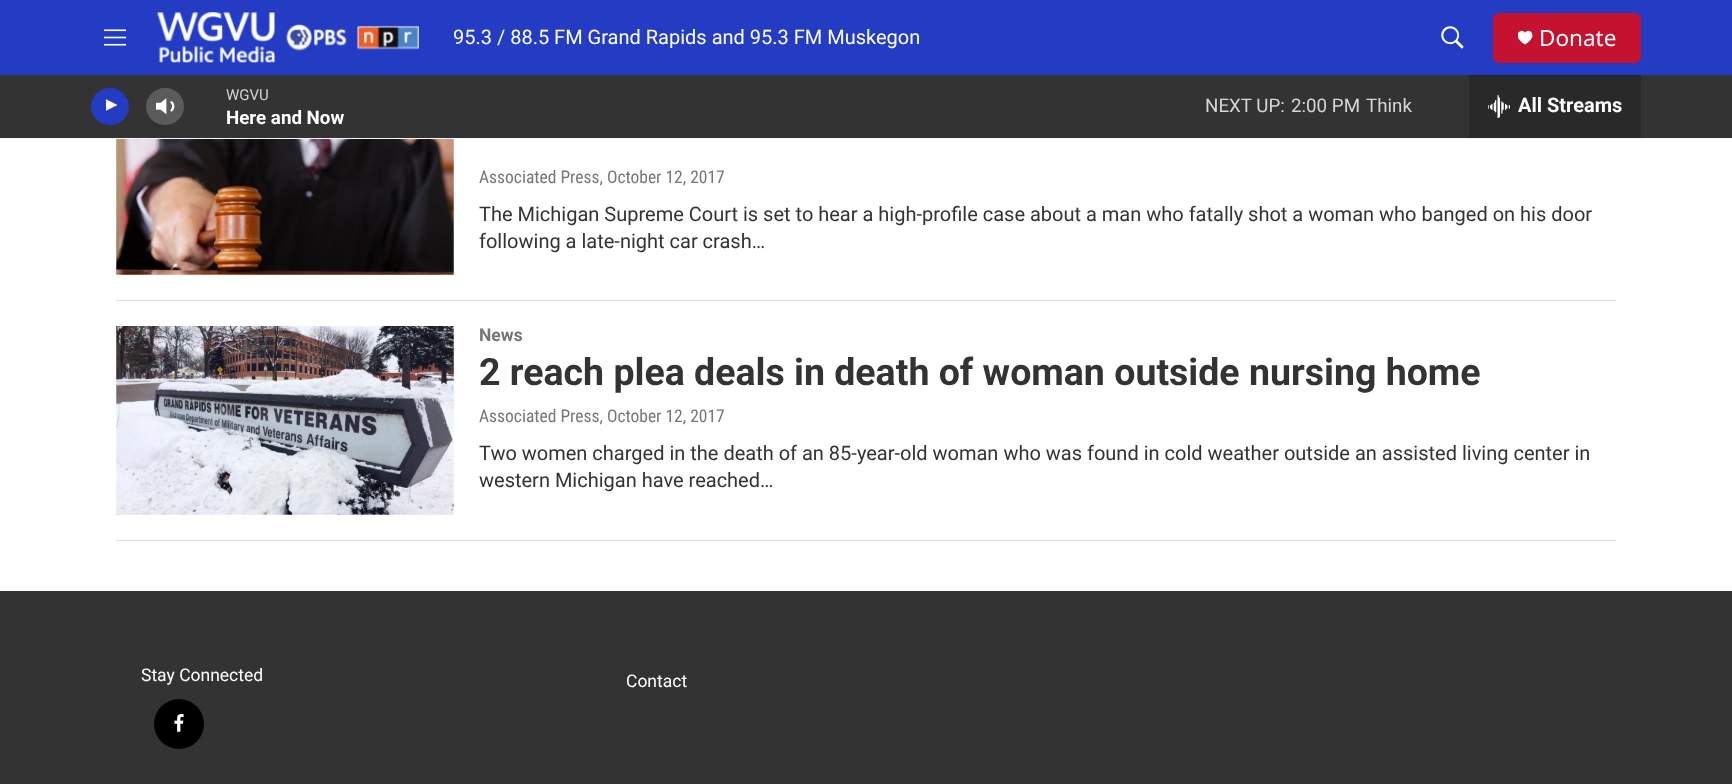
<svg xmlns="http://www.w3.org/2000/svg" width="1732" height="784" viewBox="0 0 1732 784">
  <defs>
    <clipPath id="clip1"><rect x="1518" y="30" width="15" height="15"/></clipPath>
    <clipPath id="clip2"><rect x="106" y="98" width="15" height="18"/></clipPath>
  </defs>
  <rect width="100%" height="100%" fill="rgb(255,255,255)"/>
  <rect x="0" y="0" width="1732" height="75" fill="rgb(36,60,196)"/>
  <rect x="0" y="138" width="1732" height="1" fill="rgb(245,245,245)"/>
  <image x="104" y="29" width="22" height="17" href="pic1.png"/>
  <image x="157" y="12" width="262" height="51" href="pic2.png"/>
  <text x="453" y="44" font-family="Roboto" font-size="20" fill="rgb(255,255,255)">95.3 / 88.5 FM Grand Rapids and 95.3 FM Muskegon</text>
  <image x="1441" y="26" width="23" height="23" href="pic3.png"/>
  <rect x="1493" y="13" width="148" height="50" rx="6" fill="rgb(196,18,48)"/>
  <g clip-path="url(#clip1)">
    <path d="M1525 33C1522.5 26.5 1509.5 35 1525 44.5C1540.5 35 1527.5 26.5 1525 33Z" fill="rgb(255,255,255)"/>
  </g>
  <text x="1539" y="46" font-family="Noto Sans" font-size="22.5" fill="rgb(255,255,255)">Donate</text>
  <rect x="0" y="75" width="1732" height="63" fill="rgb(51,51,51)"/>
  <rect x="91" y="88" width="38" height="37" rx="18.5" fill="rgb(36,60,196)"/>
  <g clip-path="url(#clip2)">
    <path d="M105.5 99L117.5 105L105.5 111Z" fill="rgb(255,255,255)"/>
  </g>
  <image x="156" y="98" width="19" height="17" href="pic4.png"/>
  <rect x="146" y="88" width="38" height="37" rx="18.5" fill="rgba(255,255,255,0.2)"/>
  <text x="226" y="100" font-family="Roboto" font-size="15" fill="rgb(214,214,214)">WGVU</text>
  <text x="226" y="124" font-family="'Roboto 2'" font-size="18.75" font-weight="bold" fill="rgb(255,255,255)">Here and Now</text>
  <g font-family="Roboto" font-size="18.75" fill="rgb(214,214,214)">
    <text x="1205" y="112">NEXT UP:</text>
    <text x="1291" y="112">2:00 PM</text>
    <text x="1366" y="112">Think</text>
  </g>
  <rect x="1469" y="75" width="172" height="63" fill="rgb(41,41,41)"/>
  <image x="1488" y="95" width="22" height="23" href="pic5.png"/>
  <text x="1518" y="112" font-family="'Roboto 2'" font-size="20" font-weight="bold" fill="rgb(255,255,255)">All Streams</text>
  <rect x="116" y="300" width="1500" height="1" fill="rgb(220,220,220)"/>
  <image x="116" y="139" width="338" height="136" href="pic6.png"/>
  <text x="479" y="183" font-family="Roboto Condensed" font-size="17.5" fill="rgb(118,118,118)">Associated Press, October 12, 2017</text>
  <g font-family="Roboto" font-size="20" fill="rgb(51,51,51)">
    <text>
      <tspan x="479" y="221">The Michigan Supreme Court is set to hear a high-profile case about a man who fatally shot a woman who banged on his door</tspan>
      <tspan x="479" y="248">following a late-night car crash…</tspan>
    </text>
  </g>
  <rect x="116" y="540" width="1500" height="1" fill="rgb(220,220,220)"/>
  <image x="116" y="326" width="338" height="189" href="pic7.png"/>
  <text x="479" y="341" font-family="Roboto" font-size="17.5" font-weight="bold" fill="rgb(118,118,118)">News</text>
  <text x="479" y="385" font-family="Roboto" font-size="37.5" font-weight="bold" fill="rgb(51,51,51)">2 reach plea deals in death of woman outside nursing home</text>
  <text x="479" y="422" font-family="Roboto Condensed" font-size="17.5" fill="rgb(118,118,118)">Associated Press, October 12, 2017</text>
  <g font-family="Roboto" font-size="20" fill="rgb(51,51,51)">
    <text>
      <tspan x="479" y="460">Two women charged in the death of an 85-year-old woman who was found in cold weather outside an assisted living center in</tspan>
      <tspan x="479" y="487">western Michigan have reached…</tspan>
    </text>
  </g>
  <rect x="0" y="591" width="1732" height="193" fill="rgb(51,51,51)"/>
  <text x="141" y="681" font-family="Roboto" font-size="17.5" fill="rgb(255,255,255)">Stay Connected</text>
  <circle cx="179" cy="724" r="25" fill="rgb(0,0,0)"/>
  <image x="174" y="714" width="10" height="18" href="pic8.png"/>
  <text x="626" y="687" font-family="Roboto" font-size="17.5" fill="rgb(255,255,255)">Contact</text>
</svg>
